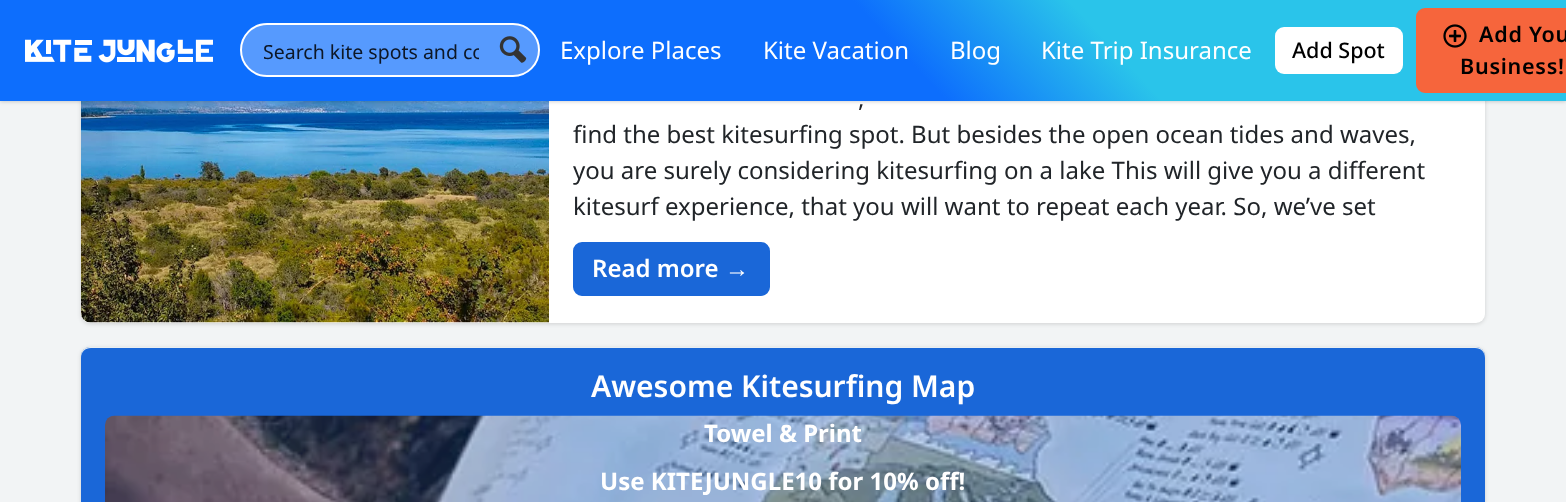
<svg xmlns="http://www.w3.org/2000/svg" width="1566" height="502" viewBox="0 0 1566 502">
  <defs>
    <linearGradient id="g1" gradientUnits="userSpaceOnUse" x1="339" y1="464" x2="1227" y2="-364"><stop offset="0.57" stop-color="rgb(13,110,253)"/><stop offset="0.7" stop-color="rgb(42,196,234)"/></linearGradient>
    <clipPath id="clip1"><rect x="263" y="38" width="216" height="27"/></clipPath>
  </defs>
  <rect width="100%" height="100%" fill="rgb(242,244,245)"/>
  <rect x="81" y="-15" width="1404" height="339" rx="9" fill="rgba(0,0,0,0.14)" filter="blur(2px)"/>
  <rect x="81" y="-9" width="1404" height="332" rx="9" fill="rgb(255,255,255)"/>
  <image x="81" y="101" width="468" height="222" href="pic4.png"/>
  <rect x="0" y="0" width="1566" height="101" fill="rgba(0,0,0,0.25)" filter="blur(2px)"/>
  <rect x="0" y="0" width="1566" height="101" fill="url(#g1)"/>
  <image x="25" y="39" width="188" height="24" href="pic1.png"/>
  <rect x="241" y="24" width="298" height="52" rx="26" fill="rgb(86,154,254)" stroke="rgb(255,255,255)" stroke-width="2"/>
  <g clip-path="url(#clip1)">
    <text x="263" y="59" font-family="Noto Sans" font-size="19.5" fill="rgb(13,23,38)">Search kite spots and co</text>
  </g>
  <image x="499" y="36" width="28" height="27" href="pic2.png"/>
  <g font-family="Noto Sans" font-size="24" fill="rgb(255,255,255)">
    <text x="560" y="59">Explore Places</text>
    <text x="763" y="59">Kite Vacation</text>
    <text x="950" y="59">Blog</text>
    <text x="1041" y="59">Kite Trip Insurance</text>
  </g>
  <rect x="1275" y="27" width="128" height="47" rx="9" fill="rgb(255,255,255)"/>
  <text x="1292" y="58" font-family="Noto Sans" font-size="21.5" font-weight="500" fill="rgb(0,0,0)">Add Spot</text>
  <rect x="1417" y="9" width="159" height="83" rx="8" fill="rgb(246,101,60)" stroke="rgb(246,101,60)" stroke-width="2"/>
  <image x="1443" y="24" width="24" height="24" href="pic3.png"/>
  <g font-family="Noto Sans" font-size="21.5" font-weight="600" letter-spacing="0.75" fill="rgb(0,0,0)">
    <text x="1479" y="42">Add You</text>
    <text x="1460" y="74">Business!</text>
  </g>
  <g font-family="Noto Sans" font-size="24" fill="rgb(33,37,41)">
    <text x="858" y="107">,</text>
    <text>
      <tspan x="573" y="143">find the best kitesurfing spot. But besides the open ocean tides and waves,</tspan>
      <tspan x="573" y="179">you are surely considering kitesurfing on a lake This will give you a different</tspan>
      <tspan x="573" y="215">kitesurf experience, that you will want to repeat each year. So, we’ve set</tspan>
    </text>
  </g>
  <rect x="574" y="243" width="195" height="52" rx="8" fill="rgb(26,103,216)" stroke="rgb(26,103,216)" stroke-width="2"/>
  <text x="592" y="277" font-family="Noto Sans" font-size="24" font-weight="600" fill="rgb(255,255,255)">Read more</text>
  <text x="725" y="277" font-family="Liberation Sans" font-size="24" font-weight="bold" fill="rgb(255,255,255)">→</text>
  <rect x="81" y="348" width="1404" height="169" rx="9" fill="rgba(0,0,0,0.14)" filter="blur(2px)"/>
  <rect x="81" y="347" width="1404" height="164" rx="9" fill="rgb(26,103,216)"/>
  <path d="M91 348H1475C1481 348 1485 352 1485 358V356C1485 351 1481 347 1476 347H90C85 347 81 351 81 356V358C81 352 85 348 91 348Z" fill="rgb(233,238,242)"/>
  <text x="591" y="397" font-family="Noto Sans" font-size="30" font-weight="600" fill="rgb(255,255,255)">Awesome Kitesurfing Map</text>
  <image x="105" y="415" width="1356" height="87" href="pic5.png"/>
  <g font-family="Noto Sans" font-size="24" font-weight="bold" fill="rgb(255,255,255)">
    <text x="704" y="442">Towel &amp; Print</text>
    <text x="600" y="490">Use KITEJUNGLE10 for 10% off!</text>
  </g>
</svg>
